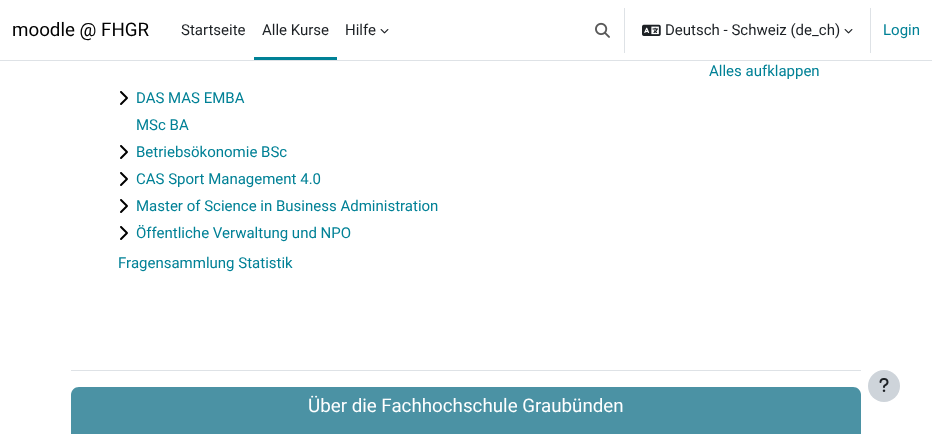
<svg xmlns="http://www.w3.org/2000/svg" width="932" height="434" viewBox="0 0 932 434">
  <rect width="100%" height="100%" fill="rgb(255,255,255)"/>
  <rect x="0" y="60" width="932" height="1" fill="rgb(222,226,230)"/>
  <text x="12" y="36" font-family="Roboto" font-size="18.75" fill="rgb(0,0,0)">moodle @ FHGR</text>
  <text x="181" y="35" font-family="Roboto" font-size="15" fill="rgb(29,33,37)">Startseite</text>
  <rect x="254" y="57" width="83" height="3" fill="rgb(0,129,150)"/>
  <g font-family="Roboto" font-size="15" fill="rgb(29,33,37)">
    <text x="262" y="35">Alle Kurse</text>
    <text x="345" y="35">Hilfe</text>
  </g>
  <image x="380" y="29" width="9" height="5" href="pic1.png"/>
  <image x="595" y="22" width="15" height="16" href="pic2.png"/>
  <rect x="624" y="8" width="1" height="45" fill="rgb(222,226,230)"/>
  <image x="642" y="24" width="19" height="12" href="pic3.png"/>
  <text x="665" y="35" font-family="Roboto" font-size="15" fill="rgb(29,33,37)">Deutsch - Schweiz (de_ch)</text>
  <image x="844" y="29" width="9" height="5" href="pic1.png"/>
  <rect x="870" y="8" width="1" height="45" fill="rgb(222,226,230)"/>
  <g font-family="Roboto" font-size="15" fill="rgb(0,129,150)">
    <text x="883" y="35">Login</text>
    <text x="709" y="76">Alles aufklappen</text>
  </g>
  <image x="120" y="91" width="8" height="14" href="pic4.png"/>
  <g font-family="Roboto" font-size="15" fill="rgb(0,129,150)">
    <text>
      <tspan x="136" y="103">DAS MAS EMBA</tspan>
      <tspan x="136" y="130">MSc BA</tspan>
    </text>
  </g>
  <image x="120" y="145" width="8" height="14" href="pic4.png"/>
  <text x="136" y="157" font-family="Roboto" font-size="15" fill="rgb(0,129,150)">Betriebsökonomie BSc</text>
  <image x="120" y="172" width="8" height="14" href="pic4.png"/>
  <text x="136" y="184" font-family="Roboto" font-size="15" fill="rgb(0,129,150)">CAS Sport Management 4.0</text>
  <image x="120" y="199" width="8" height="14" href="pic4.png"/>
  <text x="136" y="211" font-family="Roboto" font-size="15" fill="rgb(0,129,150)">Master of Science in Business Administration</text>
  <image x="120" y="226" width="8" height="14" href="pic4.png"/>
  <g font-family="Roboto" font-size="15" fill="rgb(0,129,150)">
    <text x="136" y="238">Öffentliche Verwaltung und NPO</text>
    <text x="118" y="268">Fragensammlung Statistik</text>
  </g>
  <circle cx="884" cy="386" r="16" fill="rgb(206,212,218)"/>
  <image x="879" y="378" width="10" height="14" href="pic5.png"/>
  <rect x="71" y="370" width="790" height="1" fill="rgb(222,226,230)"/>
  <path d="M79 387H853C857.5 387 861 390.5 861 395V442H71V395C71 390.5 74.5 387 79 387Z" fill="rgb(75,146,164)"/>
  <text x="308" y="412" font-family="Roboto" font-size="18.75" fill="rgb(255,255,255)">Über die Fachhochschule Graubünden</text>
</svg>
